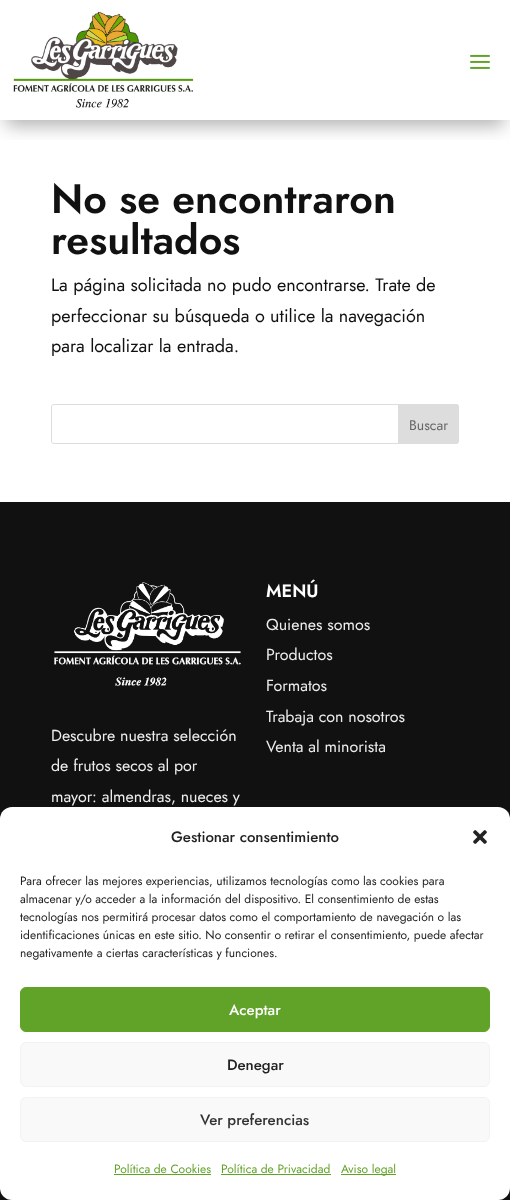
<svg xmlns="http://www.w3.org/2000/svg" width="510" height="1200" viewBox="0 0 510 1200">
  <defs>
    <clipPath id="clip1"><rect x="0" y="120" width="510" height="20"/></clipPath>
  </defs>
  <rect width="100%" height="100%" fill="rgb(255,255,255)"/>
  <g clip-path="url(#clip1)">
    <rect x="6" y="18" width="498" height="108" fill="rgba(0,0,0,0.3)" filter="blur(9px)"/>
  </g>
  <image x="13" y="11" width="181" height="97" href="pic1.png"/>
  <image x="470" y="54" width="20" height="15" href="pic2.png"/>
  <g font-family="Jost" font-size="41" font-weight="600" fill="rgb(17,17,17)">
    <text>
      <tspan x="51" y="213">No se encontraron</tspan>
      <tspan x="51" y="254">resultados</tspan>
    </text>
  </g>
  <g font-family="Jost" font-size="18" fill="rgb(17,17,17)">
    <text>
      <tspan x="51" y="291">La página solicitada no pudo encontrarse. Trate de</tspan>
      <tspan x="51" y="322">perfeccionar su búsqueda o utilice la navegación</tspan>
      <tspan x="51" y="352">para localizar la entrada.</tspan>
    </text>
  </g>
  <rect x="51.5" y="404.5" width="407" height="39" rx="2.5" fill="none" stroke="rgb(221,221,221)"/>
  <path d="M398.5 404.5H456C457.5 404.5 458.5 405.5 458.5 407V441C458.5 442.5 457.5 443.5 456 443.5H398.5Z" fill="rgb(221,221,221)" stroke="rgb(221,221,221)"/>
  <text x="409" y="430" font-family="Jost" font-size="14" fill="rgb(102,102,102)">Buscar</text>
  <rect x="0" y="502" width="510" height="698" fill="rgb(17,17,17)"/>
  <text x="266" y="597" font-family="Jost" font-size="18" font-weight="600" fill="rgb(255,255,255)">MENÚ</text>
  <g font-family="Jost" font-size="16" fill="rgb(237,237,237)">
    <text>
      <tspan x="266" y="630">Quienes somos</tspan>
      <tspan x="266" y="660">Productos</tspan>
      <tspan x="266" y="691">Formatos</tspan>
      <tspan x="266" y="722">Trabaja con nosotros</tspan>
      <tspan x="266" y="752">Venta al minorista</tspan>
    </text>
  </g>
  <image x="54" y="582" width="187" height="104" href="pic3.png"/>
  <g font-family="Jost" font-size="16" fill="rgb(237,237,237)">
    <text>
      <tspan x="51" y="741">Descubre nuestra selección</tspan>
      <tspan x="51" y="771">de frutos secos al por</tspan>
      <tspan x="51" y="802">mayor: almendras, nueces y</tspan>
    </text>
  </g>
  <rect x="0" y="807" width="510" height="393" rx="12" fill="rgb(255,255,255)"/>
  <text x="171" y="842" font-family="Jost" font-size="15" font-weight="500" fill="rgb(34,34,34)">Gestionar consentimiento</text>
  <image x="473" y="830" width="14" height="14" href="pic4.png"/>
  <g font-family="Jost" font-size="12" fill="rgb(34,34,34)">
    <text>
      <tspan x="20" y="885">Para ofrecer las mejores experiencias, utilizamos tecnologías como las cookies para</tspan>
      <tspan x="20" y="903">almacenar y/o acceder a la información del dispositivo. El consentimiento de estas</tspan>
      <tspan x="20" y="921">tecnologías nos permitirá procesar datos como el comportamiento de navegación o las</tspan>
      <tspan x="20" y="939">identificaciones únicas en este sitio. No consentir o retirar el consentimiento, puede afectar</tspan>
      <tspan x="20" y="957">negativamente a ciertas características y funciones.</tspan>
    </text>
  </g>
  <rect x="20.5" y="987.5" width="469" height="44" rx="5.5" fill="rgb(97,163,40)" stroke="rgb(97,163,40)"/>
  <text x="229" y="1015" font-family="Jost" font-size="15" font-weight="500" fill="rgb(255,255,255)">Aceptar</text>
  <rect x="20.5" y="1042.5" width="469" height="44" rx="5.5" fill="rgb(249,249,249)" stroke="rgb(242,242,242)"/>
  <text x="227" y="1070" font-family="Jost" font-size="15" font-weight="500" fill="rgb(34,34,34)">Denegar</text>
  <rect x="20.5" y="1097.5" width="469" height="44" rx="5.5" fill="rgb(249,249,249)" stroke="rgb(242,242,242)"/>
  <text x="200" y="1125" font-family="Jost" font-size="15" font-weight="500" fill="rgb(51,51,51)">Ver preferencias</text>
  <text x="114" y="1173" font-family="Jost" font-size="12" fill="rgb(97,163,40)">Política de Cookies</text>
  <rect x="114" y="1174" width="97" height="1" fill="rgb(97,163,40)"/>
  <text x="221" y="1173" font-family="Jost" font-size="12" fill="rgb(97,163,40)">Política de Privacidad</text>
  <rect x="221" y="1174" width="110" height="1" fill="rgb(97,163,40)"/>
  <rect x="341" y="1174" width="55" height="1" fill="rgb(97,163,40)"/>
  <text x="341" y="1173" font-family="Jost" font-size="12" fill="rgb(97,163,40)">Aviso legal</text>
</svg>
